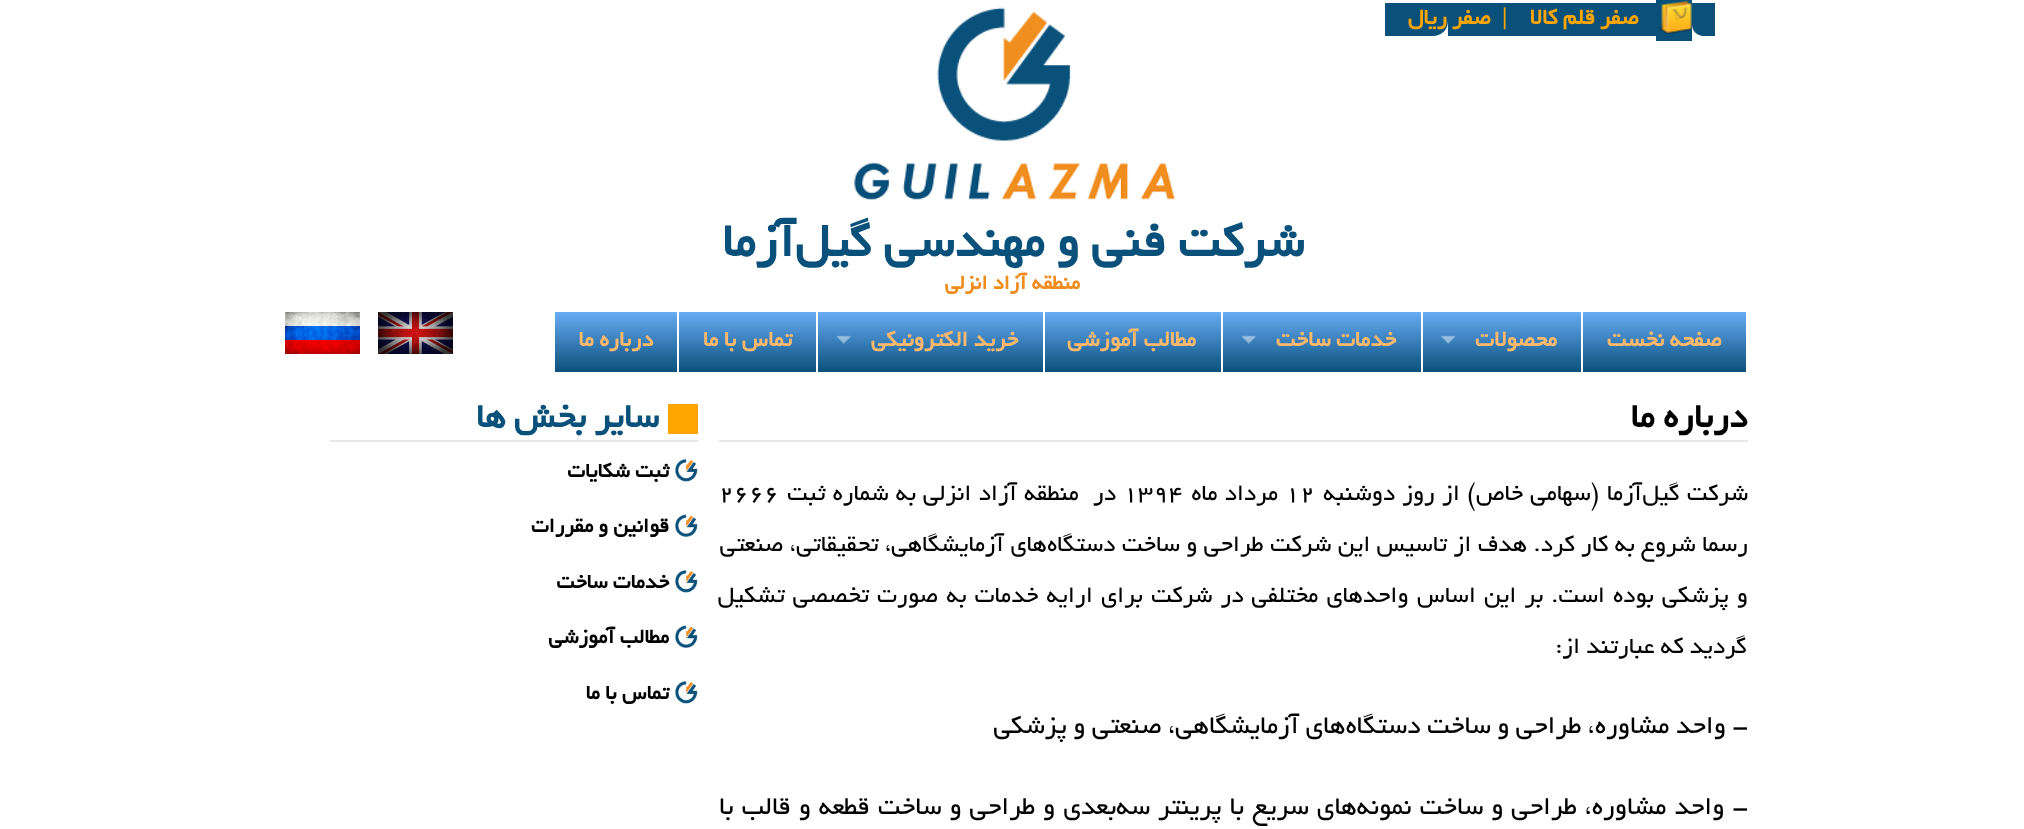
<svg xmlns="http://www.w3.org/2000/svg" width="2024" height="829" viewBox="0 0 2024 829">
  <defs>
    <linearGradient id="g1" gradientUnits="userSpaceOnUse" x1="1665" y1="312" x2="1665" y2="372"><stop offset="0" stop-color="rgb(104,172,245)"/><stop offset="1" stop-color="rgb(9,81,123)"/></linearGradient>
    <linearGradient id="g2" gradientUnits="userSpaceOnUse" x1="1502" y1="312" x2="1502" y2="372"><stop offset="0" stop-color="rgb(104,172,245)"/><stop offset="1" stop-color="rgb(9,81,123)"/></linearGradient>
    <linearGradient id="g3" gradientUnits="userSpaceOnUse" x1="1322" y1="312" x2="1322" y2="372"><stop offset="0" stop-color="rgb(104,172,245)"/><stop offset="1" stop-color="rgb(9,81,123)"/></linearGradient>
    <linearGradient id="g4" gradientUnits="userSpaceOnUse" x1="1133" y1="312" x2="1133" y2="372"><stop offset="0" stop-color="rgb(104,172,245)"/><stop offset="1" stop-color="rgb(9,81,123)"/></linearGradient>
    <linearGradient id="g5" gradientUnits="userSpaceOnUse" x1="931" y1="312" x2="931" y2="372"><stop offset="0" stop-color="rgb(104,172,245)"/><stop offset="1" stop-color="rgb(9,81,123)"/></linearGradient>
    <linearGradient id="g6" gradientUnits="userSpaceOnUse" x1="748" y1="312" x2="748" y2="372"><stop offset="0" stop-color="rgb(104,172,245)"/><stop offset="1" stop-color="rgb(9,81,123)"/></linearGradient>
    <linearGradient id="g7" gradientUnits="userSpaceOnUse" x1="617" y1="312" x2="617" y2="372"><stop offset="0" stop-color="rgb(104,172,245)"/><stop offset="1" stop-color="rgb(9,81,123)"/></linearGradient>
  </defs>
  <rect width="100%" height="100%" fill="rgb(255,255,255)"/>
  <rect x="1656" y="0" width="36" height="41" fill="rgb(9,81,123)"/>
  <image x="1658" y="0" width="34" height="35" href="pic1.png"/>
  <rect x="1448" y="3" width="208" height="33" fill="rgb(9,81,123)"/>
  <text x="1639" y="24" font-family="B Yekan" font-size="24" font-weight="bold" direction="rtl" fill="rgb(255,165,0)">صفر</text>
  <path d="M1692 3H1715V36H1703.5C1697 36 1692 31 1692 24.5Z" fill="rgb(9,81,123)"/>
  <text x="1595" y="24" font-family="B Yekan" font-size="24" font-weight="bold" direction="rtl" fill="rgb(255,165,0)">قلم کالا</text>
  <text x="1502" y="24" font-family="Liberation Serif" font-size="24" font-weight="bold" fill="rgb(255,165,0)">|</text>
  <text x="1491" y="24" font-family="B Yekan" font-size="24" font-weight="bold" direction="rtl" fill="rgb(255,165,0)">صفر</text>
  <path d="M1385 3H1448V21C1448 29.5 1441.5 36 1433 36H1385Z" fill="rgb(9,81,123)"/>
  <text x="1447" y="24" font-family="B Yekan" font-size="24" font-weight="bold" direction="rtl" fill="rgb(255,165,0)">ریال</text>
  <image x="854" y="7" width="321" height="194" href="pic2.png"/>
  <text x="1304" y="256" font-family="B Yekan" font-size="52.5" font-weight="bold" direction="rtl" fill="rgb(9,81,123)">شرکت فنی و مهندسی گیل‌آزما</text>
  <text x="1080" y="289" font-family="B Yekan" font-size="22.5" font-weight="bold" direction="rtl" fill="rgb(240,140,30)">منطقه آزاد انزلی</text>
  <rect x="1583" y="312" width="163" height="60" fill="url(#g1)"/>
  <text x="1722" y="346" font-family="B Yekan" font-size="24" font-weight="bold" direction="rtl" fill="rgb(255,185,109)">صفحه نخست</text>
  <rect x="1423" y="312" width="158" height="60" fill="url(#g2)"/>
  <text x="1557" y="346" font-family="B Yekan" font-size="24" font-weight="bold" direction="rtl" fill="rgb(255,185,109)">محصولات</text>
  <image x="1441" y="335" width="14" height="9" href="pic3.png"/>
  <rect x="1223" y="312" width="198" height="60" fill="url(#g3)"/>
  <text x="1396" y="346" font-family="B Yekan" font-size="24" font-weight="bold" direction="rtl" fill="rgb(255,185,109)">خدمات ساخت</text>
  <image x="1241" y="335" width="15" height="9" href="pic4.png"/>
  <rect x="1045" y="312" width="176" height="60" fill="url(#g4)"/>
  <text x="1196" y="346" font-family="B Yekan" font-size="24" font-weight="bold" direction="rtl" fill="rgb(255,185,109)">مطالب آموزشی</text>
  <rect x="818" y="312" width="225" height="60" fill="url(#g5)"/>
  <text x="1018" y="346" font-family="B Yekan" font-size="24" font-weight="bold" direction="rtl" fill="rgb(255,185,109)">خرید الکترونیکی</text>
  <image x="836" y="335" width="15" height="9" href="pic4.png"/>
  <rect x="679" y="312" width="137" height="60" fill="url(#g6)"/>
  <text x="792" y="346" font-family="B Yekan" font-size="24" font-weight="bold" direction="rtl" fill="rgb(255,185,109)">تماس با ما</text>
  <rect x="555" y="312" width="122" height="60" fill="url(#g7)"/>
  <text x="653" y="346" font-family="B Yekan" font-size="24" font-weight="bold" direction="rtl" fill="rgb(255,185,109)">درباره ما</text>
  <image x="378" y="312" width="75" height="42" href="pic5.png"/>
  <image x="285" y="312" width="75" height="42" href="pic6.png"/>
  <rect x="719" y="440" width="1029" height="2" fill="rgb(232,232,232)"/>
  <text x="1747" y="427" font-family="B Yekan" font-size="37.5" font-weight="bold" direction="rtl" fill="rgb(0,0,0)">درباره ما</text>
  <text x="1748" y="500" word-spacing="1.25" font-family="B Yekan" font-size="25.5" direction="rtl" fill="rgb(0,0,0)">شرکت گیل‌آزما (سهامی خاص) از روز دوشنبه</text>
  <text x="1285" y="500" font-family="B Yekan" font-size="25.5" fill="rgb(0,0,0)">12</text>
  <text x="1278" y="500" word-spacing="1" font-family="B Yekan" font-size="25.5" direction="rtl" fill="rgb(0,0,0)">مرداد ماه</text>
  <text x="1123" y="500" font-family="B Yekan" font-size="25.5" fill="rgb(0,0,0)">1394</text>
  <text x="1116" y="500" word-spacing="1.25" font-family="B Yekan" font-size="25.5" direction="rtl" fill="rgb(0,0,0)" xml:space="preserve">در  منطقه آزاد انزلی به شماره ثبت</text>
  <text x="719" y="500" font-family="B Yekan" font-size="25.5" fill="rgb(0,0,0)">2666</text>
  <g font-family="B Yekan" font-size="25.5" direction="rtl" fill="rgb(0,0,0)">
    <text x="1748" y="551" word-spacing="0.6">رسما شروع به کار کرد. هدف از تاسیس این شرکت طراحی و ساخت دستگاه‌های آزمایشگاهی، تحقیقاتی، صنعتی</text>
    <text x="1748" y="602" word-spacing="2.25">و پزشکی بوده است. بر این اساس واحدهای مختلفی در شرکت برای ارایه خدمات به صورت تخصصی تشکیل</text>
    <text x="1747" y="653">گردید که عبارتند از:</text>
  </g>
  <g font-family="B Yekan" font-size="28" direction="rtl" fill="rgb(0,0,0)">
    <text x="1748" y="733">- واحد مشاوره، طراحی و ساخت دستگاه‌های آزمایشگاهی، صنعتی و پزشکی</text>
    <text x="1748" y="814" word-spacing="1.5">- واحد مشاوره، طراحی و ساخت نمونه‌های سریع با پرینتر سه‌بعدی و طراحی و ساخت قطعه و قالب با</text>
  </g>
  <rect x="330" y="440" width="368" height="2" fill="rgb(232,232,232)"/>
  <rect x="668" y="404" width="30" height="30" fill="rgb(255,165,0)"/>
  <text x="659" y="427" font-family="B Yekan" font-size="37.5" font-weight="bold" direction="rtl" fill="rgb(9,81,123)">سایر بخش ها</text>
  <image x="675" y="459" width="23" height="23" href="pic7.png"/>
  <text x="669" y="477" font-family="B Yekan" font-size="22.5" font-weight="bold" direction="rtl" fill="rgb(0,0,0)">ثبت شکایات</text>
  <image x="675" y="514" width="23" height="23" href="pic8.png"/>
  <text x="669" y="532" font-family="B Yekan" font-size="22.5" font-weight="bold" direction="rtl" fill="rgb(0,0,0)">قوانین و مقررات</text>
  <image x="675" y="570" width="23" height="23" href="pic7.png"/>
  <text x="669" y="588" font-family="B Yekan" font-size="22.5" font-weight="bold" direction="rtl" fill="rgb(0,0,0)">خدمات ساخت</text>
  <image x="675" y="625" width="23" height="23" href="pic8.png"/>
  <text x="669" y="643" font-family="B Yekan" font-size="22.5" font-weight="bold" direction="rtl" fill="rgb(0,0,0)">مطالب آموزشی</text>
  <image x="675" y="681" width="23" height="23" href="pic7.png"/>
  <text x="669" y="699" font-family="B Yekan" font-size="22.5" font-weight="bold" direction="rtl" fill="rgb(0,0,0)">تماس با ما</text>
</svg>
